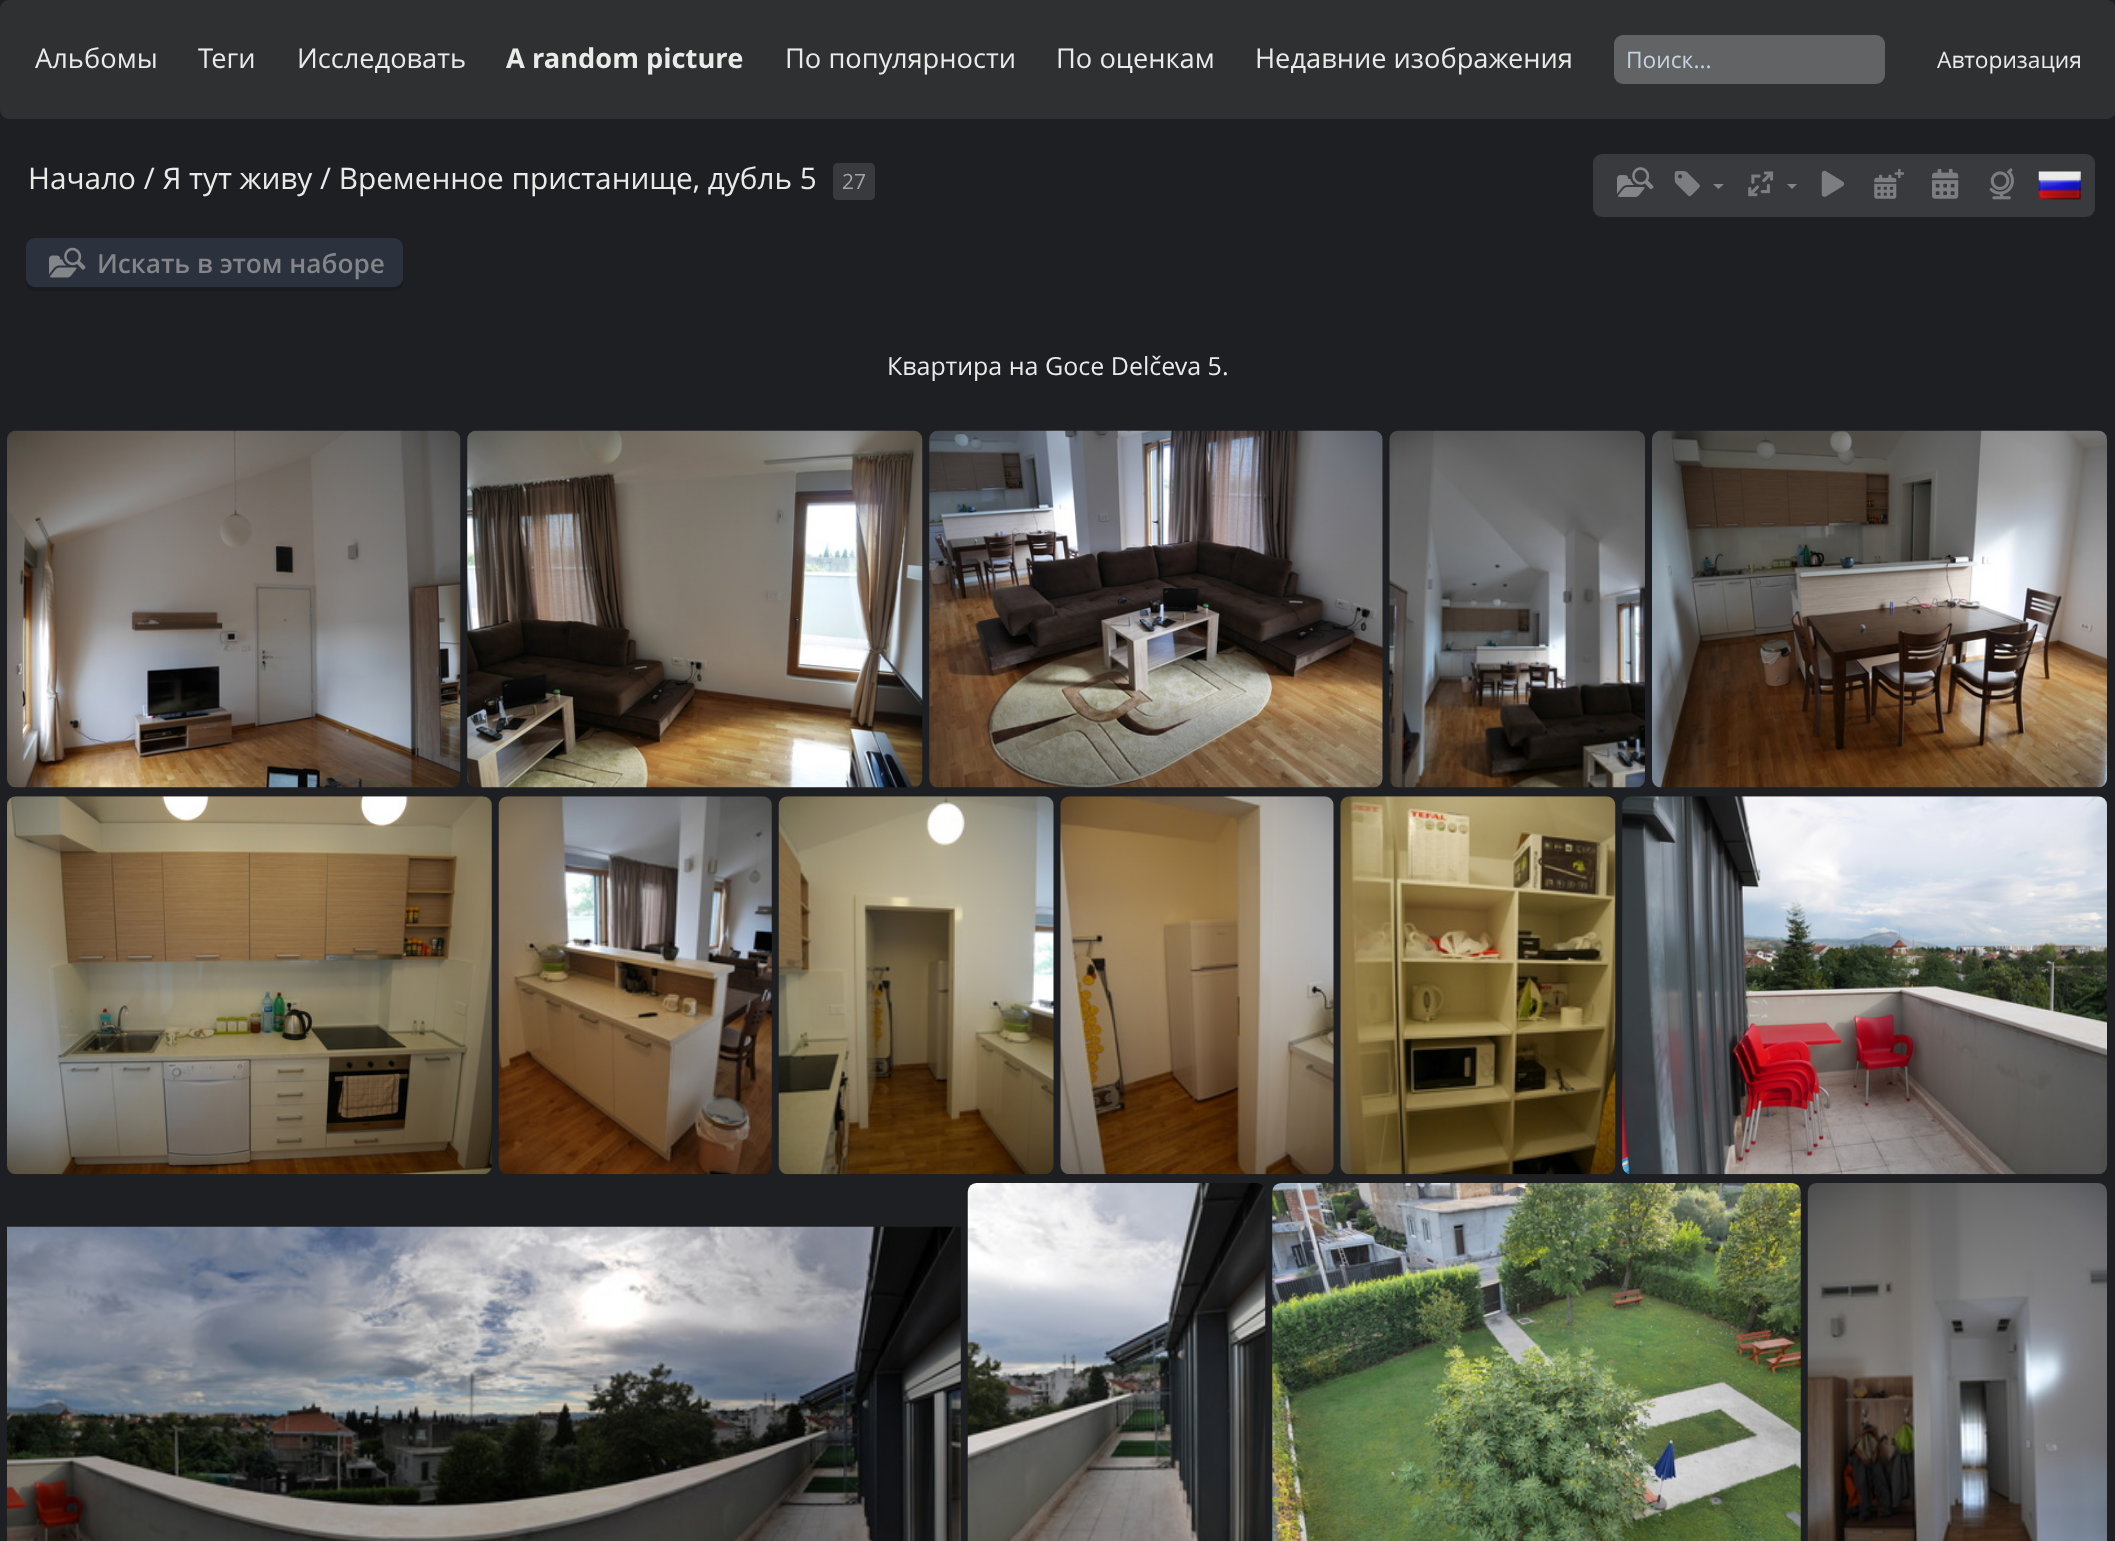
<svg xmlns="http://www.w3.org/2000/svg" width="2115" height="1541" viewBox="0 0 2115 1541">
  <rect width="100%" height="100%" fill="rgb(30,31,35)"/>
  <rect x="0" y="0" width="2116" height="119" rx="9" fill="rgb(47,48,50)"/>
  <g font-family="Open Sans" font-size="27.25" fill="rgb(234,234,233)">
    <text x="35" y="68">Альбомы</text>
    <text x="198" y="68">Теги</text>
    <text x="297" y="68">Исследовать</text>
  </g>
  <text x="506" y="68" font-family="Open Sans" font-size="27.25" font-weight="bold" fill="rgb(234,234,233)">A random picture</text>
  <g font-family="Open Sans" font-size="27.25" fill="rgb(234,234,233)">
    <text x="785" y="68">По популярности</text>
    <text x="1056" y="68">По оценкам</text>
    <text x="1255" y="68">Недавние изображения</text>
  </g>
  <rect x="1614" y="35" width="271" height="49" rx="9" fill="rgb(97,99,100)"/>
  <text x="1626" y="68" font-family="Open Sans" font-size="22.75" fill="rgb(199,211,225)">Поиск...</text>
  <text x="1937" y="68" font-family="Open Sans" font-size="22.75" fill="rgb(234,234,233)">Авторизация</text>
  <text x="28" y="189" font-family="Open Sans" font-size="29.75" fill="rgb(234,234,233)">Начало / Я тут живу / Временное пристанище, дубль 5</text>
  <rect x="842" y="163" width="24" height="37" fill="rgb(57,58,61)"/>
  <text x="842" y="189" font-family="Open Sans" font-size="21" fill="rgb(164,164,164)">27</text>
  <path d="M837.5 163H842V200H837.5C835 200 833 198 833 195.5V167.5C833 165 835 163 837.5 163Z" fill="rgb(57,58,61)"/>
  <path d="M866 163H870.5C873 163 875 165 875 167.5V195.5C875 198 873 200 870.5 200H866Z" fill="rgb(57,58,61)"/>
  <rect x="1593" y="154" width="502" height="63" rx="9" fill="rgb(57,58,61)"/>
  <image x="1617" y="167" width="37" height="30" href="pic1.png"/>
  <image x="1674" y="171" width="26" height="26" href="pic2.png"/>
  <path d="M1713 184H1724L1718.5 189Z" fill="rgb(132,133,136)"/>
  <image x="1748" y="171" width="26" height="26" href="pic3.png"/>
  <path d="M1787 184H1797L1792 189Z" fill="rgb(132,133,136)"/>
  <image x="1821" y="170" width="23" height="27" href="pic4.png"/>
  <image x="1874" y="168" width="30" height="31" href="pic5.png"/>
  <image x="1932" y="168" width="27" height="31" href="pic6.png"/>
  <image x="1989" y="168" width="25" height="32" href="pic7.png"/>
  <image x="2038" y="171" width="43" height="29" href="pic8.png"/>
  <path d="M26 249V272C26 279 24 291 35 291H394C405 291 403 279 403 272L402 248V278C402 283 399 287 394 287H35C30 287 26 283 26 278Z" fill="rgb(26,27,30)"/>
  <rect x="26" y="238" width="377" height="49" rx="9" fill="rgb(43,49,61)"/>
  <image x="49" y="247" width="37" height="31" href="pic9.png"/>
  <text x="97" y="273" font-family="Open Sans" font-size="26.25" font-weight="600" fill="rgb(132,133,136)">Искать в этом наборе</text>
  <text x="887" y="375" font-family="Open Sans" font-size="25" fill="rgb(234,234,233)">Квартира на Goce Delčeva 5.</text>
  <image x="7" y="430" width="454" height="358" href="pic10.png"/>
  <image x="467" y="430" width="456" height="358" href="pic11.png"/>
  <image x="929" y="430" width="454" height="358" href="pic12.png"/>
  <image x="1389" y="430" width="256" height="358" href="pic13.png"/>
  <image x="1652" y="430" width="455" height="358" href="pic14.png"/>
  <image x="7" y="796" width="485" height="379" href="pic15.png"/>
  <image x="498" y="796" width="274" height="379" href="pic16.png"/>
  <image x="778" y="796" width="276" height="379" href="pic17.png"/>
  <image x="1060" y="796" width="274" height="379" href="pic18.png"/>
  <image x="1340" y="796" width="276" height="379" href="pic19.png"/>
  <image x="1622" y="796" width="485" height="379" href="pic20.png"/>
  <image x="7" y="1226" width="954" height="315" href="pic21.png"/>
  <image x="967" y="1183" width="299" height="358" href="pic22.png"/>
  <image x="1272" y="1183" width="529" height="358" href="pic23.png"/>
  <image x="1807" y="1183" width="300" height="358" href="pic24.png"/>
</svg>
